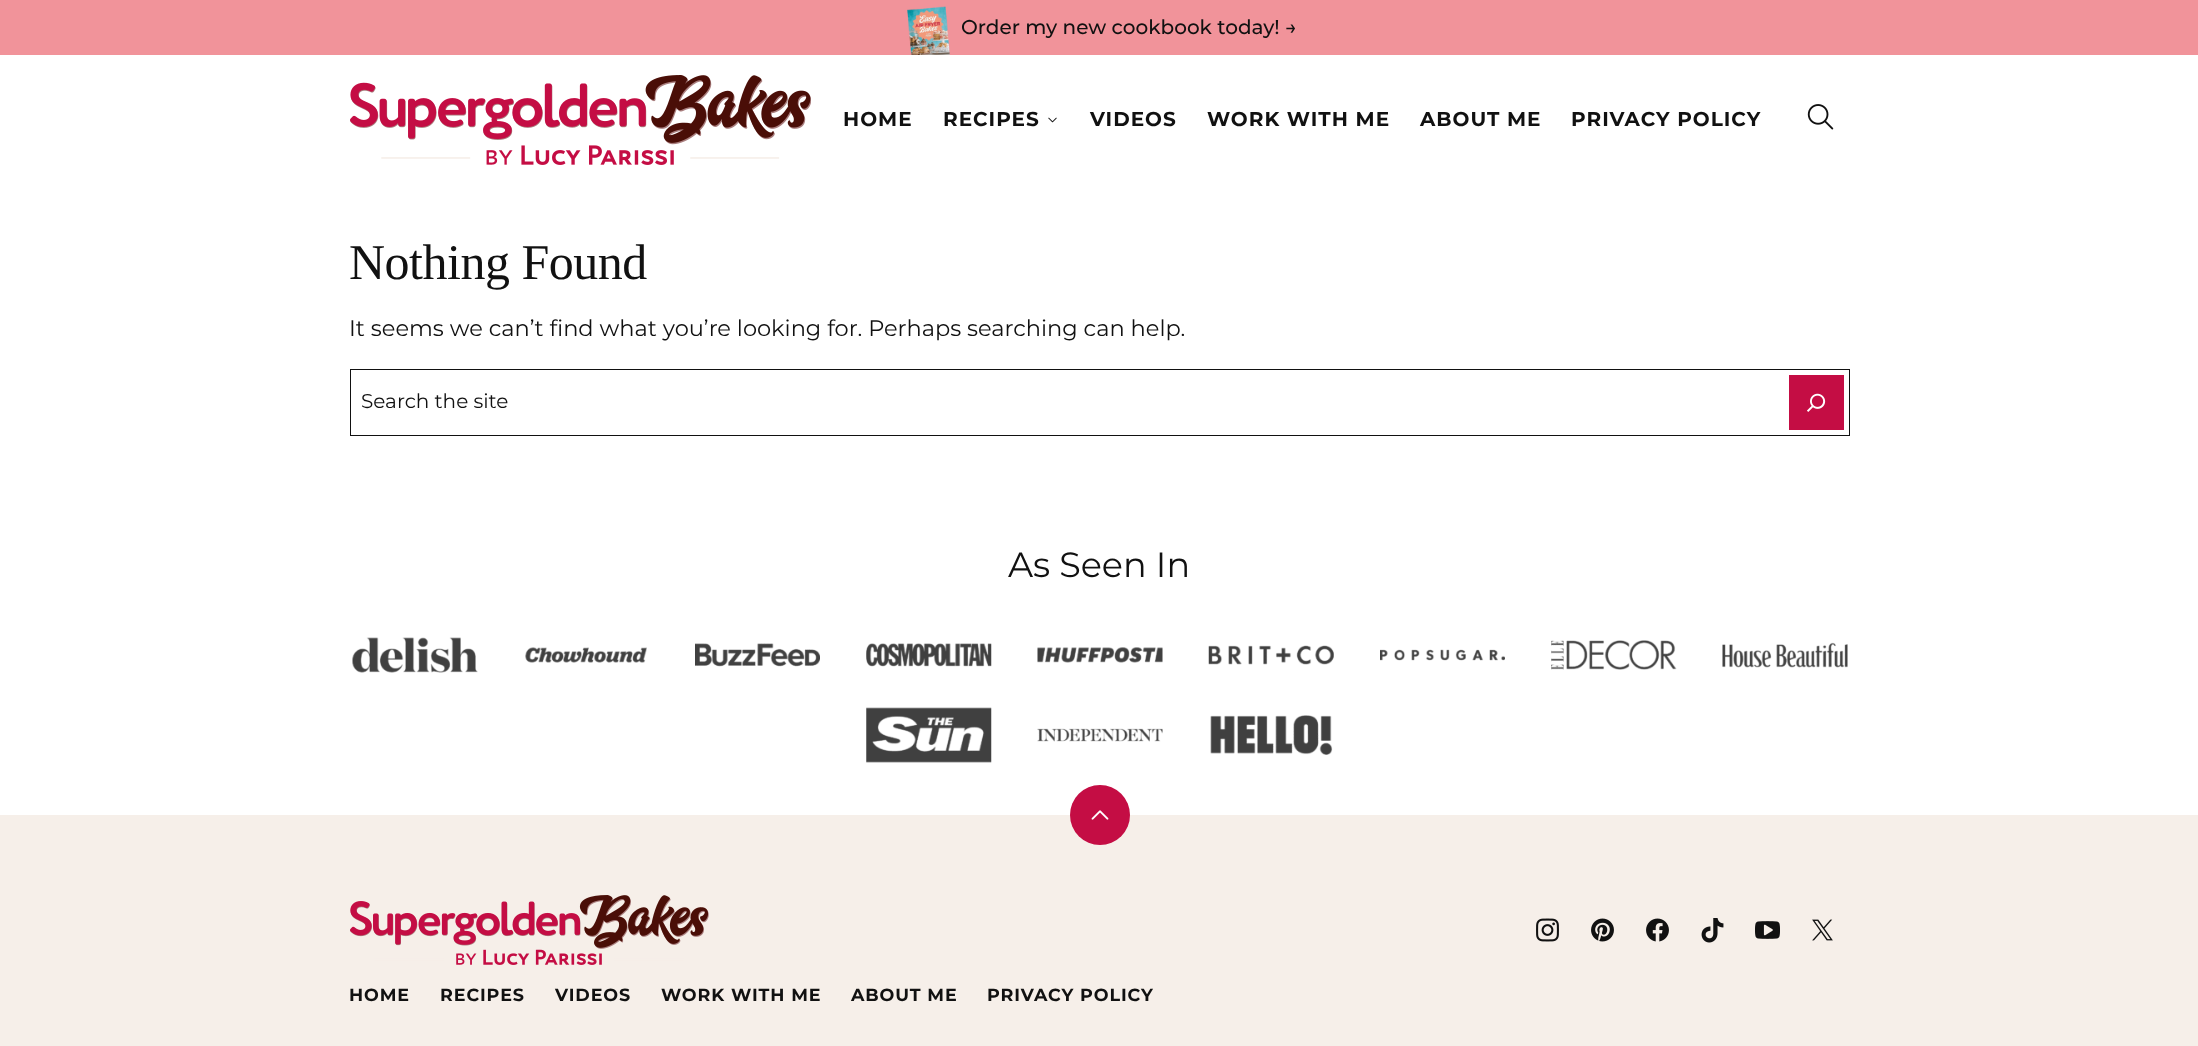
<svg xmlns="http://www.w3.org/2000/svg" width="2198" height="1046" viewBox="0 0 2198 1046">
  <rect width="100%" height="100%" fill="rgb(255,255,255)"/>
  <rect x="0" y="0" width="2198" height="55" fill="rgb(241,147,154)"/>
  <image x="907" y="6" width="43" height="49" href="pic1.png"/>
  <text x="961" y="34" font-family="Montserrat" font-size="20" font-weight="500" fill="rgb(17,17,17)">Order my new cookbook today! →</text>
  <image x="350" y="75" width="461" height="90" href="pic2.png"/>
  <g font-family="Montserrat" font-size="20" font-weight="bold" letter-spacing="1" fill="rgb(17,17,17)">
    <text x="843" y="126">HOME</text>
    <text x="943" y="126">RECIPES</text>
  </g>
  <image x="1048" y="117" width="9" height="6" href="pic3.png"/>
  <g font-family="Montserrat" font-size="20" font-weight="bold" letter-spacing="1" fill="rgb(17,17,17)">
    <text x="1090" y="126">VIDEOS</text>
    <text x="1207" y="126">WORK WITH ME</text>
    <text x="1420" y="126">ABOUT ME</text>
    <text x="1571" y="126">PRIVACY POLICY</text>
  </g>
  <image x="1807" y="104" width="27" height="26" href="pic4.png"/>
  <text x="349" y="279" font-family="Liberation Serif" font-size="50" letter-spacing="-0.5" fill="rgb(17,17,17)">Nothing Found</text>
  <text x="349" y="336" font-family="Montserrat" font-size="22.5" fill="rgb(17,17,17)">It seems we can’t find what you’re looking for. Perhaps searching can help.</text>
  <rect x="350.5" y="369.5" width="1499" height="66" fill="none" stroke="rgb(17,17,17)"/>
  <text x="361" y="408" font-family="Montserrat" font-size="20" fill="rgb(17,17,17)">Search the site</text>
  <rect x="1789" y="375" width="55" height="55" fill="rgb(196,13,68)"/>
  <image x="1807" y="393" width="19" height="19" href="pic5.png"/>
  <text x="1008" y="577" font-family="Montserrat" font-size="35" fill="rgb(17,17,17)">As Seen In</text>
  <image x="352" y="637" width="126" height="36" href="pic6.png"/>
  <image x="525" y="647" width="122" height="16" href="pic7.png"/>
  <image x="695" y="643" width="125" height="24" href="pic8.png"/>
  <image x="866" y="643" width="126" height="24" href="pic9.png"/>
  <image x="1037" y="647" width="126" height="16" href="pic10.png"/>
  <image x="1208" y="645" width="126" height="20" href="pic11.png"/>
  <image x="1380" y="649" width="125" height="12" href="pic12.png"/>
  <image x="1551" y="640" width="126" height="30" href="pic13.png"/>
  <image x="1722" y="642" width="126" height="26" href="pic14.png"/>
  <image x="866" y="707" width="126" height="56" href="pic15.png"/>
  <image x="1037" y="728" width="126" height="14" href="pic16.png"/>
  <image x="1210" y="715" width="123" height="40" href="pic17.png"/>
  <rect x="0" y="815" width="2198" height="231" fill="rgb(246,239,233)"/>
  <circle cx="1100" cy="815" r="30" fill="rgb(196,13,68)"/>
  <image x="1091" y="810" width="18" height="10" href="pic18.png"/>
  <image x="350" y="895" width="359" height="70" href="pic19.png"/>
  <image x="1536" y="918" width="23" height="24" href="pic20.png"/>
  <image x="1591" y="918" width="23" height="24" href="pic21.png"/>
  <image x="1646" y="918" width="23" height="24" href="pic22.png"/>
  <image x="1701" y="918" width="23" height="25" href="pic23.png"/>
  <image x="1755" y="921" width="25" height="18" href="pic24.png"/>
  <image x="1812" y="919" width="21" height="22" href="pic25.png"/>
  <g font-family="Montserrat" font-size="17.5" font-weight="bold" letter-spacing="0.9" fill="rgb(17,17,17)">
    <text x="349" y="1001">HOME</text>
    <text x="440" y="1001">RECIPES</text>
    <text x="555" y="1001">VIDEOS</text>
    <text x="661" y="1001">WORK WITH ME</text>
    <text x="851" y="1001">ABOUT ME</text>
    <text x="987" y="1001">PRIVACY POLICY</text>
  </g>
</svg>
